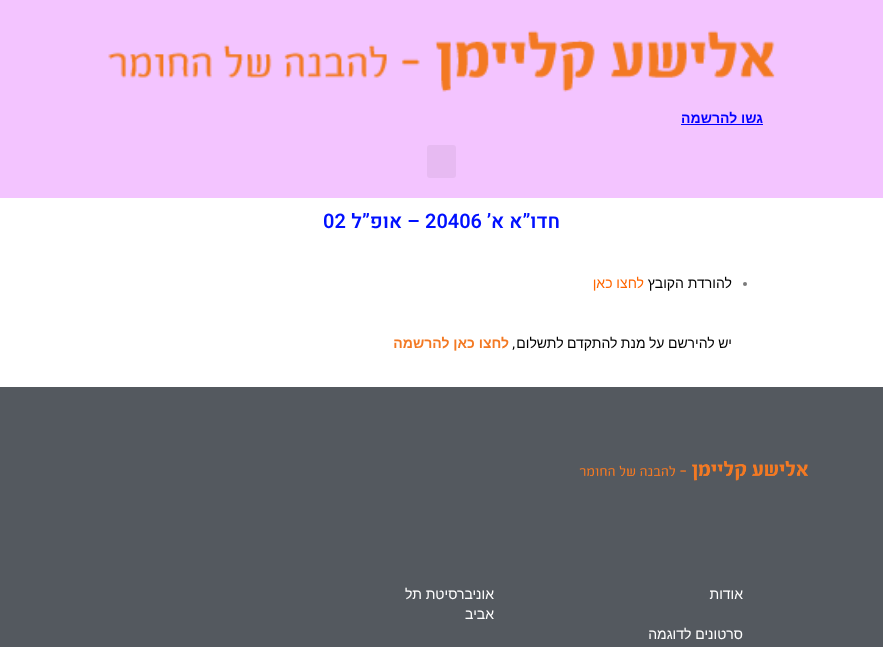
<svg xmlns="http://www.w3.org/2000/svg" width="883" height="647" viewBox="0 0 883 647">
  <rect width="100%" height="100%" fill="rgb(255,255,255)"/>
  <rect x="0" y="0" width="883" height="198" fill="rgb(243,196,255)"/>
  <image x="108" y="30" width="667" height="62" href="pic1.png"/>
  <text x="763" y="123" font-family="Liberation Sans" font-size="14" font-weight="bold" direction="rtl" fill="rgb(4,0,255)">גשו להרשמה</text>
  <rect x="681" y="124" width="82" height="1" fill="rgb(4,0,255)"/>
  <rect x="427" y="145" width="29" height="33" rx="3" fill="rgb(231,186,242)"/>
  <text x="560" y="228" font-family="Heebo" font-size="20" font-weight="600" direction="rtl" fill="rgb(0,16,255)">חדו”א א’</text>
  <text x="425" y="228" font-family="Heebo" font-size="20" font-weight="600" fill="rgb(0,16,255)">20406</text>
  <text x="420" y="228" font-family="Heebo" font-size="20" font-weight="600" direction="rtl" fill="rgb(0,16,255)">– אופ”ל</text>
  <text x="323" y="228" font-family="Heebo" font-size="20" font-weight="600" fill="rgb(0,16,255)">02</text>
  <circle cx="745" cy="284" r="2" fill="rgb(122,122,122)"/>
  <text x="732" y="288" font-family="Liberation Sans" font-size="14" direction="rtl" fill="rgb(0,0,0)">להורדת הקובץ</text>
  <text x="644" y="288" font-family="Liberation Sans" font-size="14" direction="rtl" fill="rgb(255,102,0)">לחצו כאן</text>
  <text x="732" y="348" word-spacing="-0.5" font-family="Liberation Sans" font-size="14" direction="rtl" fill="rgb(0,0,0)">יש להירשם על מנת להתקדם לתשלום</text>
  <text x="515" y="348" font-family="Roboto" font-size="14" direction="rtl" fill="rgb(0,0,0)">,</text>
  <text x="509" y="348" font-family="Liberation Sans" font-size="14" font-weight="bold" direction="rtl" fill="rgb(243,121,35)">לחצו כאן להרשמה</text>
  <rect x="0" y="387" width="883" height="260" fill="rgb(84,89,95)"/>
  <image x="579" y="460" width="229" height="21" href="pic2.png"/>
  <g font-family="Liberation Sans" font-size="14" direction="rtl" fill="rgb(255,255,255)">
    <text x="743" y="599">אודות</text>
    <text x="743" y="639">סרטונים לדוגמה</text>
    <text>
      <tspan x="494" y="599">אוניברסיטת תל</tspan>
      <tspan x="494" y="619">אביב</tspan>
    </text>
  </g>
</svg>
